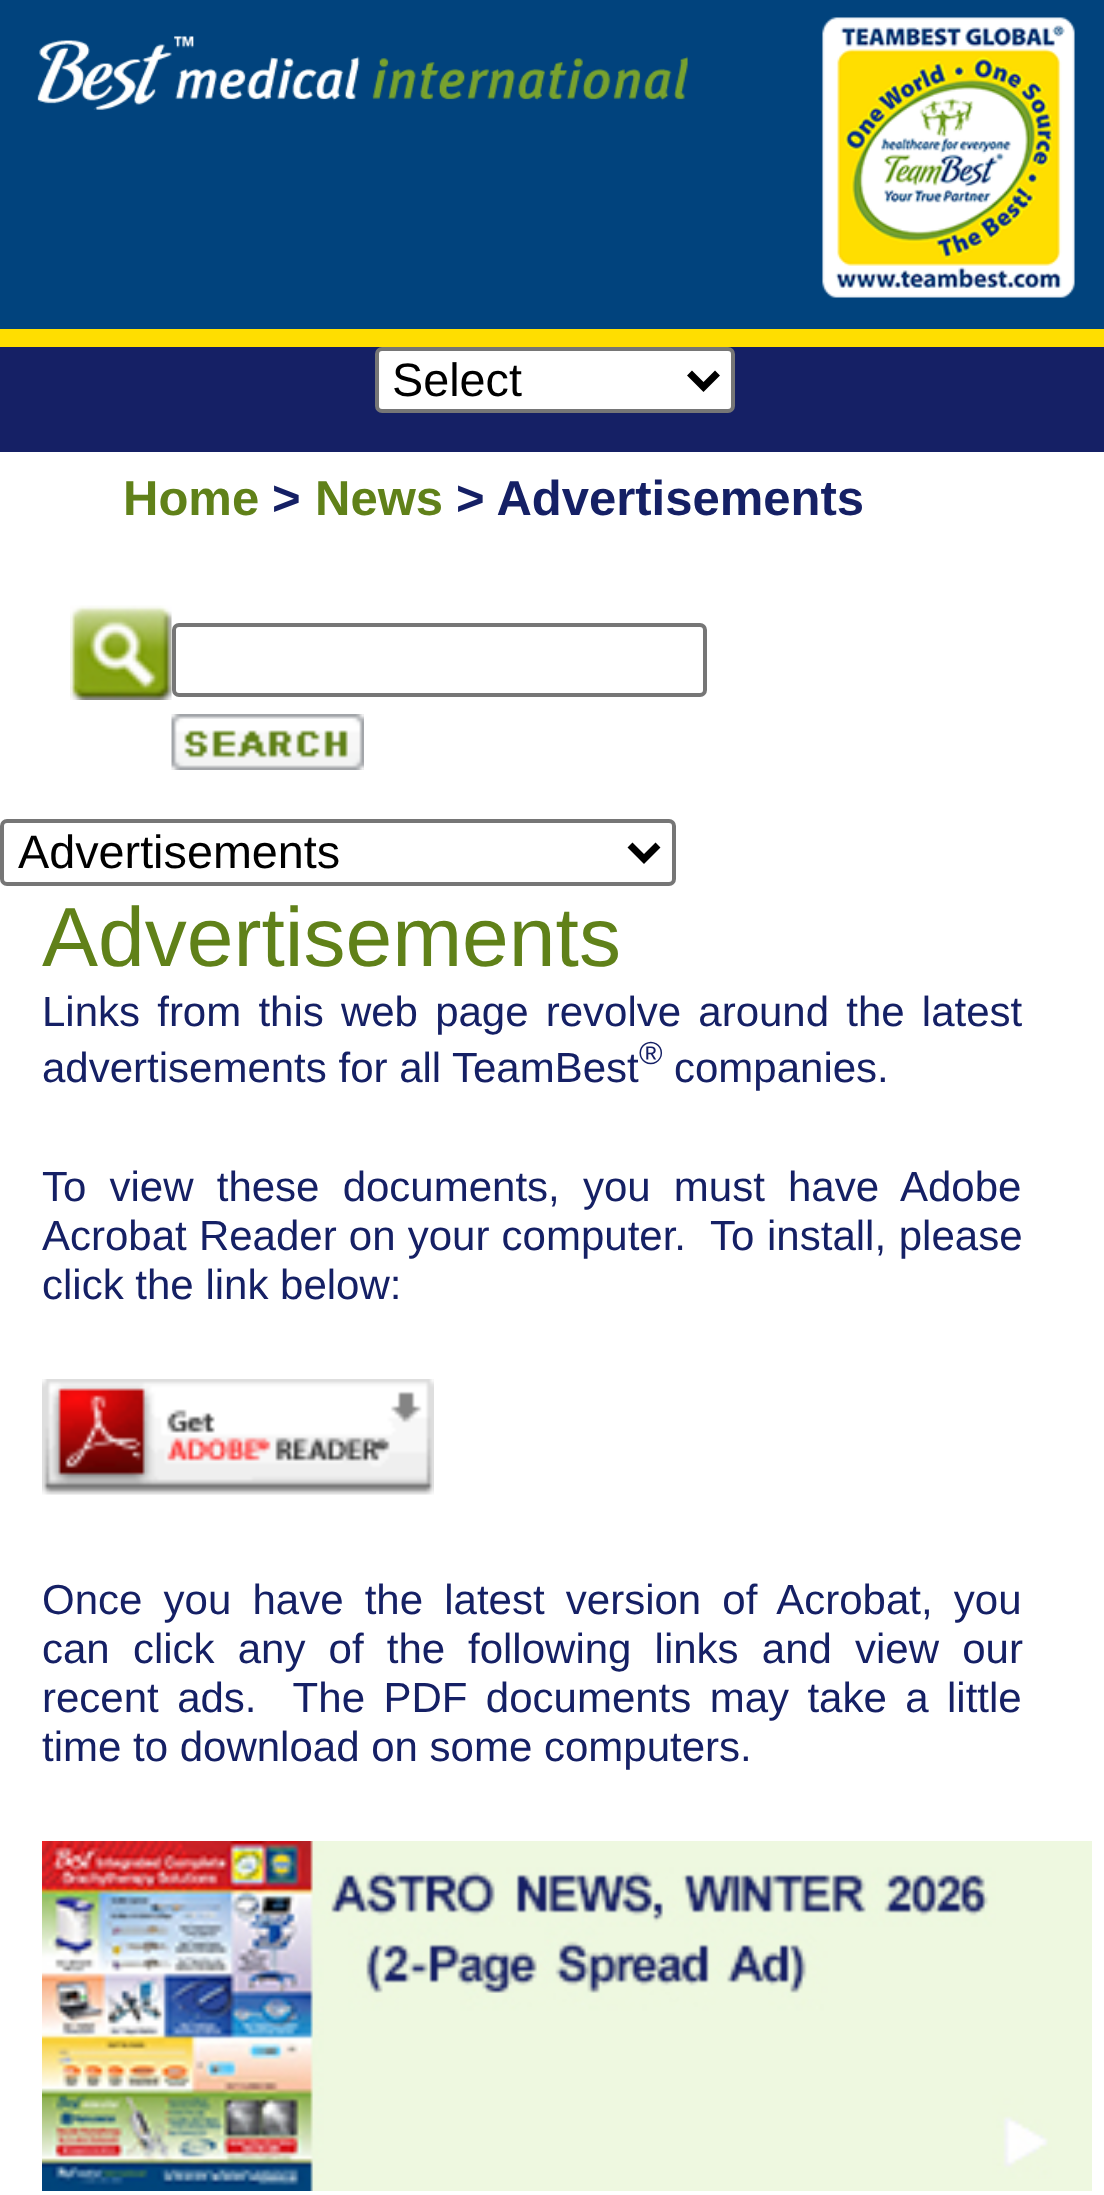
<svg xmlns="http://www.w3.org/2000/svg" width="1104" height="2195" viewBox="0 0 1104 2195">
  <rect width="100%" height="100%" fill="rgb(21,32,101)"/>
  <rect x="0" y="0" width="1104" height="329" fill="rgb(1,67,125)"/>
  <rect x="0" y="329" width="1104" height="18" fill="rgb(255,222,0)"/>
  <image x="37" y="36" width="651" height="74" href="pic1.png"/>
  <image x="822" y="17" width="253" height="281" href="pic2.png"/>
  <rect x="377" y="349" width="356" height="62" rx="5" fill="rgb(255,255,255)" stroke="rgb(118,118,118)" stroke-width="4"/>
  <path d="M689.5 373L703.5 387L717.5 373" fill="none" stroke="rgb(0,0,0)" stroke-width="7"/>
  <text x="392" y="396" font-family="Liberation Sans" font-size="46.75" fill="rgb(0,0,0)">Select</text>
  <rect x="0" y="452" width="1104" height="1743" fill="rgb(255,255,255)"/>
  <text x="123" y="515" font-family="Liberation Sans" font-size="49" font-weight="bold" fill="rgb(96,129,25)">Home</text>
  <text x="272" y="515" font-family="Liberation Sans" font-size="49" font-weight="bold" fill="rgb(21,32,101)">&gt;</text>
  <text x="315" y="515" font-family="Liberation Sans" font-size="49" font-weight="bold" fill="rgb(96,129,25)">News</text>
  <text x="456" y="515" font-family="Liberation Sans" font-size="49" font-weight="bold" fill="rgb(21,32,101)">&gt; Advertisements</text>
  <image x="70" y="605" width="102" height="95" href="pic3.png"/>
  <rect x="174" y="625" width="531" height="70" rx="5" fill="none" stroke="rgb(118,118,118)" stroke-width="4"/>
  <image x="171" y="714" width="193" height="56" href="pic4.png"/>
  <rect x="2" y="821" width="672" height="63" rx="5" fill="none" stroke="rgb(118,118,118)" stroke-width="4"/>
  <path d="M630 845L644 859L658 845" fill="none" stroke="rgb(0,0,0)" stroke-width="7"/>
  <text x="18" y="868" font-family="Liberation Sans" font-size="46.75" fill="rgb(0,0,0)">Advertisements</text>
  <text x="42" y="966" font-family="Liberation Sans" font-size="84" fill="rgb(96,129,25)">Advertisements</text>
  <g font-family="Liberation Sans" font-size="42" fill="rgb(21,32,101)">
    <text>
      <tspan x="42" y="1026" word-spacing="5.5">Links from this web page revolve around the latest</tspan>
      <tspan x="42" y="1082">advertisements for all</tspan>
    </text>
    <text x="452" y="1082">TeamBest</text>
  </g>
  <text x="639" y="1064" font-family="Liberation Sans" font-size="32" fill="rgb(21,32,101)">®</text>
  <g font-family="Liberation Sans" font-size="42" fill="rgb(21,32,101)">
    <text x="674" y="1082">companies.</text>
    <text>
      <tspan x="42" y="1201" word-spacing="11.5">To view these documents, you must have Adobe</tspan>
      <tspan x="42" y="1250" word-spacing="0.5">Acrobat Reader on your computer.</tspan>
    </text>
    <text x="710" y="1250" word-spacing="1">To install, please</text>
    <text x="42" y="1299">click the link below:</text>
  </g>
  <image x="42" y="1379" width="392" height="116" href="pic5.png"/>
  <g font-family="Liberation Sans" font-size="42" fill="rgb(21,32,101)">
    <text>
      <tspan x="42" y="1614" word-spacing="9.5">Once you have the latest version of Acrobat, you</tspan>
      <tspan x="42" y="1663" word-spacing="11.5">can click any of the</tspan>
    </text>
    <text x="468" y="1663" word-spacing="11.5">following links and view our</text>
    <text xml:space="preserve"><tspan x="42" y="1712" word-spacing="6.75">recent ads.  The PDF documents may take a little</tspan><tspan x="42" y="1761">time to download on some computers.</tspan></text>
  </g>
  <image x="42" y="1841" width="1050" height="350" href="pic6.png"/>
</svg>
